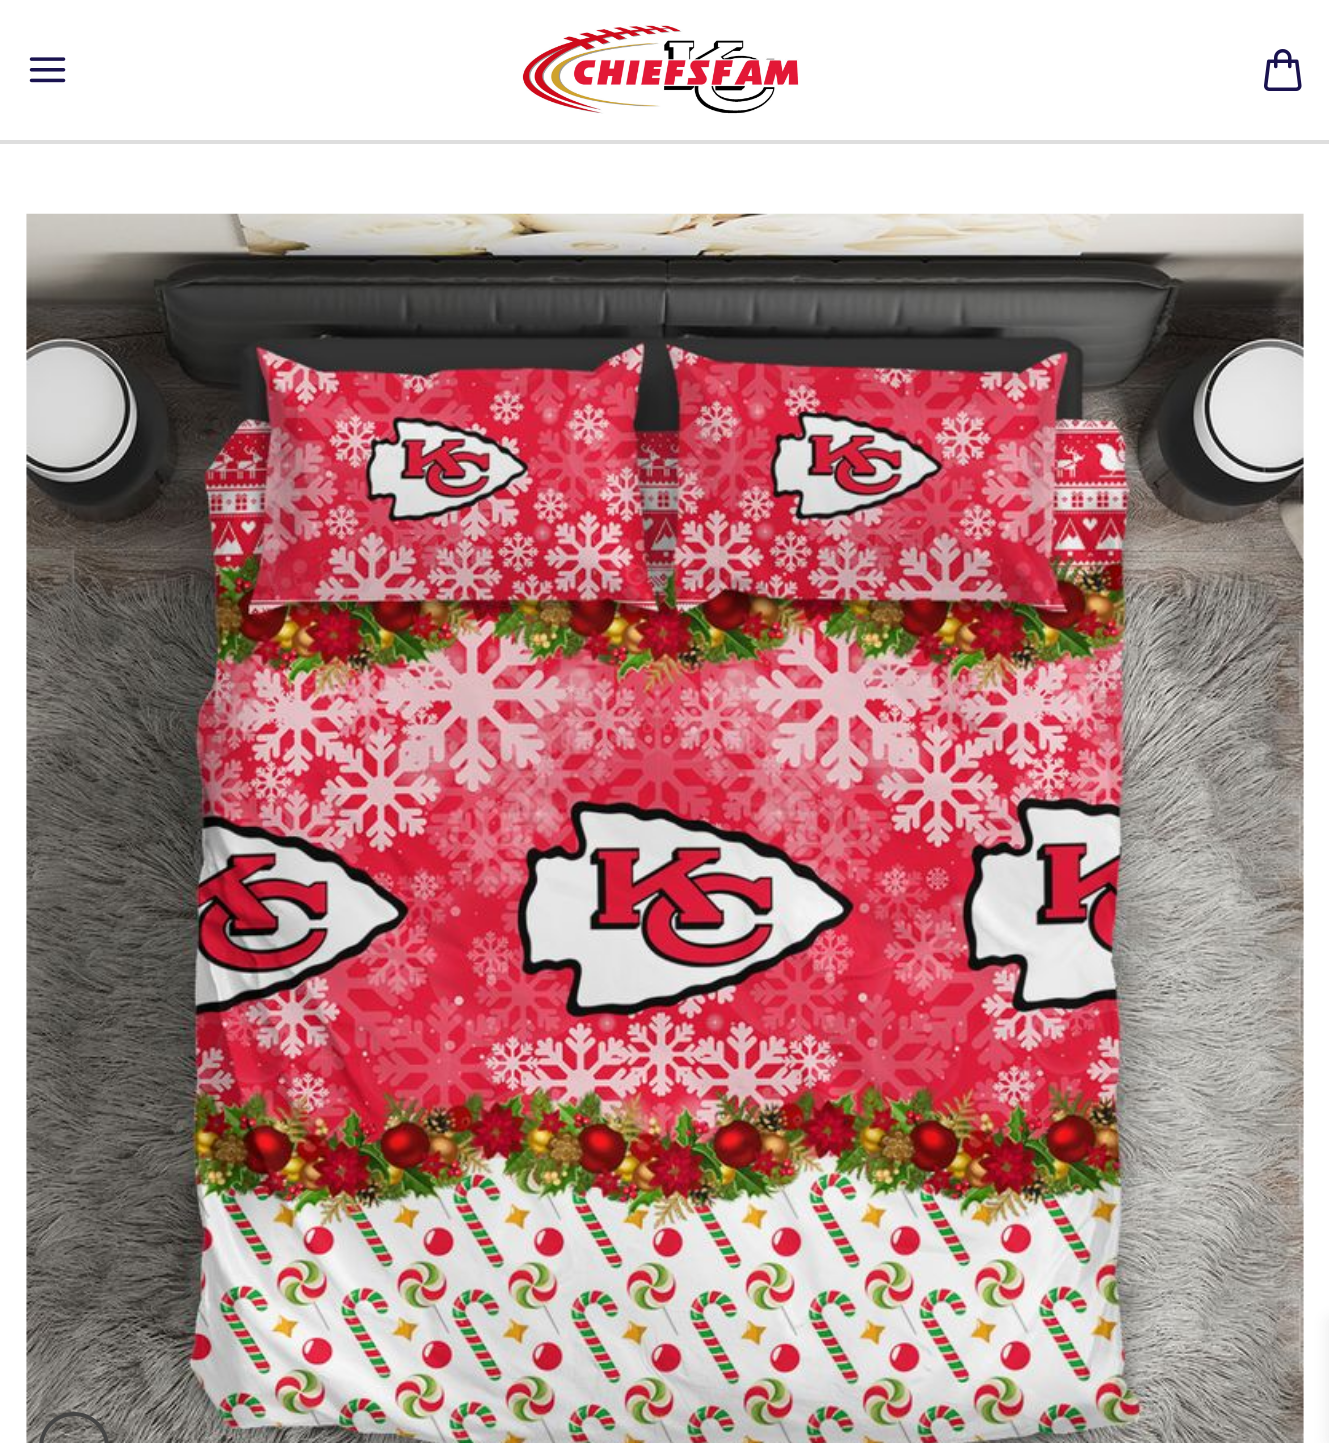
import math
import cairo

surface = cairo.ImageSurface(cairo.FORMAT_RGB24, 1329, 1443)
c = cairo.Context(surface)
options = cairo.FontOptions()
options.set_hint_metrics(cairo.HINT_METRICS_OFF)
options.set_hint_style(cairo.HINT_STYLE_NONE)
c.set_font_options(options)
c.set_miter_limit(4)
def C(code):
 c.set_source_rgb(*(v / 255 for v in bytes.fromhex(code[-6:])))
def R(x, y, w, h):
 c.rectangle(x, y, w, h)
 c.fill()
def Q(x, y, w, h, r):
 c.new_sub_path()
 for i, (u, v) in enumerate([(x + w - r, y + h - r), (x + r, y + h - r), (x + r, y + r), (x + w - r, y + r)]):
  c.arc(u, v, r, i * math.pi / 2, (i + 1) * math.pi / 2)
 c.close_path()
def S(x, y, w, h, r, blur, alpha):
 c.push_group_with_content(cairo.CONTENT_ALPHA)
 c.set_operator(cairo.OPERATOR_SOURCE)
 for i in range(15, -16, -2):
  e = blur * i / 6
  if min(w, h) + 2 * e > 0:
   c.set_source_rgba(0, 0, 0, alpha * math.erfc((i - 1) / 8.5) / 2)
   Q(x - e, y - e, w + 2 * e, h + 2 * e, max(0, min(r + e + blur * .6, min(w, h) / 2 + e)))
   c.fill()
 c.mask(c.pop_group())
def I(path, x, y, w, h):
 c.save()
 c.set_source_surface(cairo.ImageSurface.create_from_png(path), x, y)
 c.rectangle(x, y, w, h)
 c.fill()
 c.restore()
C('ffffff')
c.paint()
C('dedede')
R(0,140,1329,4)
I('1.png',29,57,37,26)
I('2.png',522,24,277,90)
I('3.png',1264,49,38,42)
I('4.png',26,213,1278,1230)
c.arc(74,1447,33,0,2 * math.pi)
C('444444')
c.set_line_width(4)
c.stroke()
C('000000')
S(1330,1321,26,121,0,9,.1)
surface.write_to_png('o.png')
